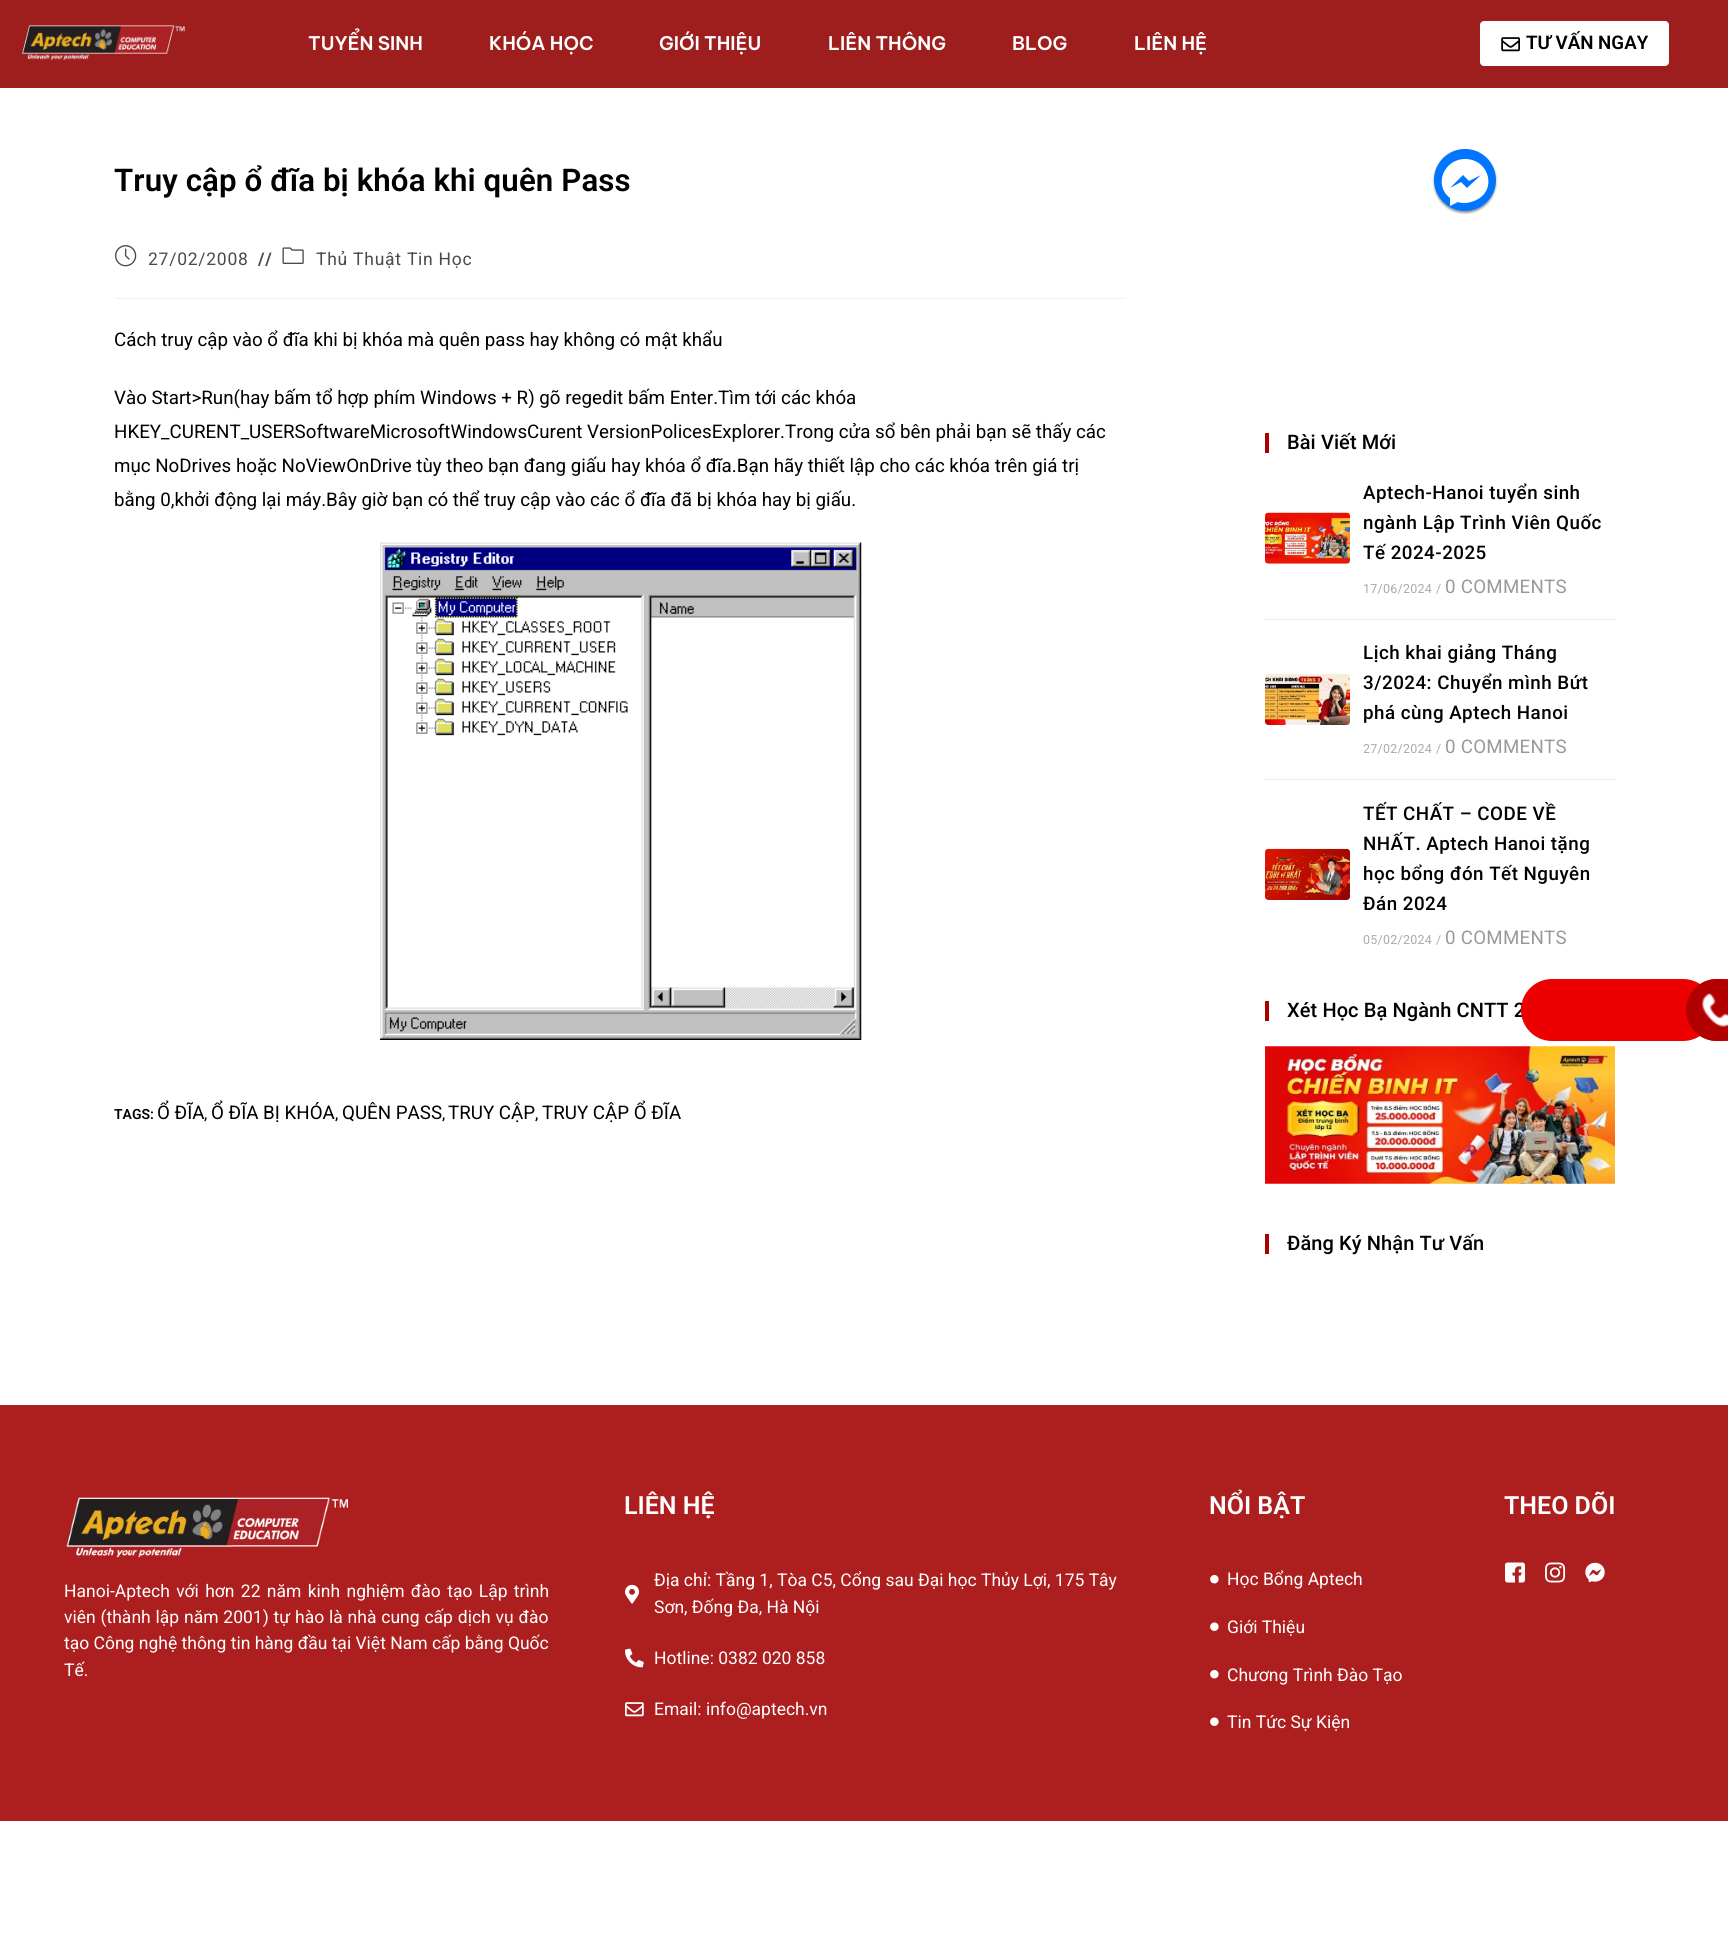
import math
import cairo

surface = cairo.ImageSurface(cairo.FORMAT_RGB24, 1728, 1957)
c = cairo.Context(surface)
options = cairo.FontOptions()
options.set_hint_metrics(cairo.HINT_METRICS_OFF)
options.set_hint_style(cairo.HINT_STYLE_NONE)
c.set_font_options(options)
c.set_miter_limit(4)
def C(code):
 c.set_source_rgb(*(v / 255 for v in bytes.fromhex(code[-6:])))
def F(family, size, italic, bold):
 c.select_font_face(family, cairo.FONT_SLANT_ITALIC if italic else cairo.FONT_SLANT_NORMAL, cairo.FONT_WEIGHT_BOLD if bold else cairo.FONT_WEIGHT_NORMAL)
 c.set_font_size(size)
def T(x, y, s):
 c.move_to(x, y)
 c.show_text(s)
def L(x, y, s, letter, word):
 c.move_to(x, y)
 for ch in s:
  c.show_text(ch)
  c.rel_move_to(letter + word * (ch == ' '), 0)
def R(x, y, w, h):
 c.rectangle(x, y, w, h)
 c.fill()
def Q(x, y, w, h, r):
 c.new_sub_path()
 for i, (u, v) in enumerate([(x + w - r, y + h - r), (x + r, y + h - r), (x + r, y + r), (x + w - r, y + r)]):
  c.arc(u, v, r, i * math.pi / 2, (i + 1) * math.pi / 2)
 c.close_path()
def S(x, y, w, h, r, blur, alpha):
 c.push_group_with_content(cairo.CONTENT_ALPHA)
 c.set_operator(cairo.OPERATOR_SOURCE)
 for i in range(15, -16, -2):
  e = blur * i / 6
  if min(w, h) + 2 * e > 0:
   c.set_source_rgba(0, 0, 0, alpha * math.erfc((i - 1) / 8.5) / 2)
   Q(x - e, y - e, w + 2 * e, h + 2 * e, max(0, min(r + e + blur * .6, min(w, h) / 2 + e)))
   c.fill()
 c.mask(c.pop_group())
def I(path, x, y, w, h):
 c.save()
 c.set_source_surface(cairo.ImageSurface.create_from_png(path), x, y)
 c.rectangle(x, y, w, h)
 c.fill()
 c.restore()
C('ffffff')
c.paint()
C('9e1d1d')
R(0,0,1728,88)
I('1.png',22,25,163,36)
F('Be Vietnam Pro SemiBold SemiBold',18.75,0,0)
C('ffffff')
T(308,50,'TUYỂN SINH')
T(489,50,'KHÓA HỌC')
T(659,50,'GIỚI THIỆU')
T(828,50,'LIÊN THÔNG')
T(1012,50,'BLOG')
T(1134,50,'LIÊN HỆ')
Q(1480,21,189,45,4)
c.fill()
I('2.png',1501,37,19,15)
F('Roboto SemiBold',18.75,0,0)
C('000000')
T(1526,49,'TƯ VẤN NGAY')
F('Roboto SemiBold',31.25,0,0)
L(114,191,'Truy cập ổ đĩa bị khóa khi quên Pass',.1,0)
C('f1f1f1')
R(115,298,1011,1)
I('3.png',115,245,22,22)
F('Roboto',17.5,0,0)
C('4a4a4a')
L(148,265,'27/02/2008',.75,0)
F('Roboto',17.5,0,1)
L(258,265,'//',.75,0)
I('4.png',282,247,22,17)
F('Roboto',17.5,0,0)
L(316,265,'Thủ Thuật Tin Học',.75,0)
F('Roboto',18.75,0,0)
C('000000')
T(114,346,'Cách truy cập vào ổ đĩa khi bị khóa mà quên pass hay không có mật khẩu')
T(114,404,'Vào Start>Run(hay bấm tổ hợp phím Windows + R) gõ regedit bấm Enter.Tìm tới các khóa')
T(114,438,'HKEY_CURENT_USERSoftwareMicrosoftWindowsCurent VersionPolicesExplorer.Trong cửa sổ bên phải bạn sẽ thấy các')
T(114,472,'mục NoDrives hoặc NoViewOnDrive tùy theo bạn đang giấu hay khóa ổ đĩa.Bạn hãy thiết lập cho các khóa trên giá trị')
T(114,506,'bằng 0,khởi động lại máy.Bây giờ bạn có thể truy cập vào các ổ đĩa đã bị khóa hay bị giấu.')
I('5.png',380,542,482,498)
F('Roboto SemiBold',14,0,0)
T(114,1119,'TAGS:')
F('Roboto',18.75,0,0)
T(157,1119,'Ổ ĐĨA')
F('Roboto SemiBold',14,0,0)
T(204,1119,',')
F('Roboto',18.75,0,0)
T(211,1119,'Ổ ĐĨA BỊ KHÓA')
F('Roboto SemiBold',14,0,0)
T(335,1119,',')
F('Roboto',18.75,0,0)
T(342,1119,'QUÊN PASS')
F('Roboto SemiBold',14,0,0)
T(442,1119,',')
F('Roboto',18.75,0,0)
T(448,1119,'TRUY CẬP')
F('Roboto SemiBold',14,0,0)
T(535,1119,',')
F('Roboto',18.75,0,0)
T(542,1119,'TRUY CẬP Ổ ĐĨA')
C('aa0000')
R(1265,433,4,20)
F('Roboto Medium',20,0,0)
C('000000')
L(1287,449,'Bài Viết Mới',.1,0)
I('6.png',1265,512,85,52)
F('Roboto Medium',18.75,0,0)
L(1363,499,'Aptech-Hanoi tuyển sinh',.5,0)
L(1363,529,'ngành Lập Trình Viên Quốc',.5,0)
L(1363,559,'Tế 2024-2025',.5,0)
F('Roboto',12.5,0,0)
C('aaaaaa')
L(1363,593,'17/06/2024',.25,0)
L(1436,593,'/',.25,0)
F('Roboto',18.75,0,0)
C('999999')
L(1445,593,'0 COMMENTS',.25,0)
C('e9e9e9')
R(1265,619,350,1)
I('7.png',1265,674,85,51)
F('Roboto Medium',18.75,0,0)
C('000000')
L(1363,659,'Lịch khai giảng Tháng',.5,0)
L(1363,689,'3/2024: Chuyển mình Bứt',.5,0)
L(1363,719,'phá cùng Aptech Hanoi',.5,0)
F('Roboto',12.5,0,0)
C('aaaaaa')
L(1363,753,'27/02/2024',.25,0)
L(1436,753,'/',.25,0)
F('Roboto',18.75,0,0)
C('999999')
L(1445,753,'0 COMMENTS',.25,0)
C('e9e9e9')
R(1265,779,350,1)
I('8.png',1265,848,85,52)
F('Roboto Medium',18.75,0,0)
C('000000')
L(1363,820,'TẾT CHẤT – CODE VỀ',.5,0)
L(1363,850,'NHẤT. Aptech Hanoi tặng',.5,0)
L(1363,880,'học bổng đón Tết Nguyên',.5,0)
L(1363,910,'Đán 2024',.5,0)
F('Roboto',12.5,0,0)
C('aaaaaa')
L(1363,944,'05/02/2024',.25,0)
L(1436,944,'/',.25,0)
F('Roboto',18.75,0,0)
C('999999')
L(1445,944,'0 COMMENTS',.25,0)
C('aa0000')
R(1265,1001,4,20)
F('Roboto Medium',20,0,0)
C('000000')
L(1287,1017,'Xét Học Bạ Ngành CNTT 2',.1,0)
I('9.png',1265,1046,350,138)
C('aa0000')
R(1265,1234,4,20)
C('000000')
L(1287,1250,'Đăng Ký Nhận Tư Vấn',.1,0)
C('ad1f1f')
R(0,1405,1728,416)
F('Roboto SemiBold',25,0,0)
C('ffffff')
T(624,1514,'LIÊN HỆ')
I('10.png',625,1584,15,20)
F('Roboto',17.5,0,0)
T(654,1586,'Địa chỉ: Tầng 1, Tòa C5, Cổng sau Đại học Thủy Lợi, 175 Tây')
T(654,1613,'Sơn, Đống Đa, Hà Nội')
I('11.png',625,1648,19,20)
T(654,1664,'Hotline: 0382 020 858')
I('12.png',625,1702,19,15)
T(654,1715,'Email: info@aptech.vn')
F('Roboto SemiBold',25,0,0)
T(1209,1514,'NỔI BẬT')
I('13.png',1210,1575,9,9)
F('Roboto',17.5,0,0)
T(1227,1585,'Học Bổng Aptech')
I('14.png',1210,1622,9,9)
T(1227,1633,'Giới Thiệu')
I('13.png',1210,1670,9,9)
T(1227,1681,'Chương Trình Đào Tạo')
I('14.png',1210,1717,9,9)
T(1227,1728,'Tin Tức Sự Kiện')
F('Roboto SemiBold',25,0,0)
T(1504,1514,'THEO DÕI')
I('15.png',1505,1562,20,21)
I('16.png',1545,1562,21,21)
I('17.png',1585,1562,20,21)
I('18.png',66,1497,282,61)
F('Roboto',17.5,0,0)
L(64,1597,'Hanoi-Aptech với hơn 22 năm kinh nghiệm đào tạo Lập trình',0,2)
L(64,1623,'viên (thành lập năm 2001) tự hào là nhà cung cấp dịch vụ đào',0,.5)
T(64,1649,'tạo Công nghệ thông tin hàng đầu tại Việt Nam cấp bằng Quốc')
T(64,1676,'Tế.')
C('000000')
S(1434,150,62,63,31,1,.4)
C('0075ff')
c.arc(1465,180,31,0,2 * math.pi)
c.fill()
C('ffffff')
c.new_path()
c.move_to(1465,159)
c.curve_to(1444,159,1433,185,1450,198)
c.line_to(1450,206)
c.line_to(1458,202)
c.curve_to(1463,204,1469,203,1474,201)
c.curve_to(1498,192,1490,159,1465,159)
c.close_path()
c.move_to(1467,188)
c.line_to(1461,182)
c.line_to(1450,188)
c.line_to(1463,175)
c.line_to(1469,181)
c.line_to(1481,175)
c.close_path()
c.fill()
C('ed0000')
Q(1521,979,193,62,31)
c.fill()
Q(1686,979,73,62,31)
c.fill()
C('b20000')
Q(1686,979,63,62,31)
c.fill()
I('19.png',1702,993,26,34)
surface.write_to_png('o.png')
